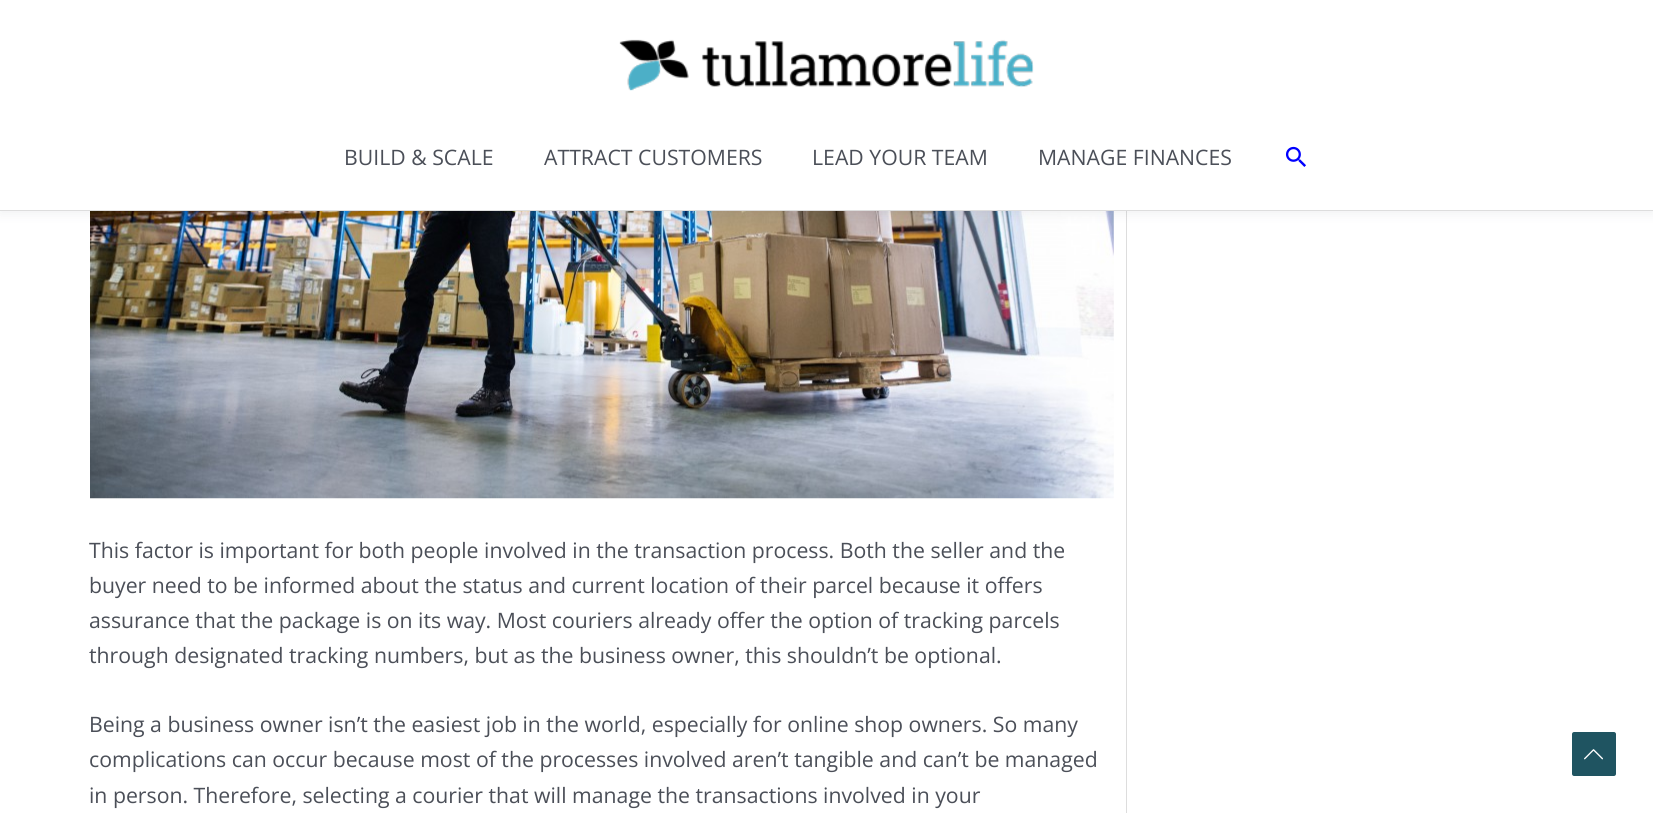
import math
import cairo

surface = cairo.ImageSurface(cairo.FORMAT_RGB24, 1653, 813)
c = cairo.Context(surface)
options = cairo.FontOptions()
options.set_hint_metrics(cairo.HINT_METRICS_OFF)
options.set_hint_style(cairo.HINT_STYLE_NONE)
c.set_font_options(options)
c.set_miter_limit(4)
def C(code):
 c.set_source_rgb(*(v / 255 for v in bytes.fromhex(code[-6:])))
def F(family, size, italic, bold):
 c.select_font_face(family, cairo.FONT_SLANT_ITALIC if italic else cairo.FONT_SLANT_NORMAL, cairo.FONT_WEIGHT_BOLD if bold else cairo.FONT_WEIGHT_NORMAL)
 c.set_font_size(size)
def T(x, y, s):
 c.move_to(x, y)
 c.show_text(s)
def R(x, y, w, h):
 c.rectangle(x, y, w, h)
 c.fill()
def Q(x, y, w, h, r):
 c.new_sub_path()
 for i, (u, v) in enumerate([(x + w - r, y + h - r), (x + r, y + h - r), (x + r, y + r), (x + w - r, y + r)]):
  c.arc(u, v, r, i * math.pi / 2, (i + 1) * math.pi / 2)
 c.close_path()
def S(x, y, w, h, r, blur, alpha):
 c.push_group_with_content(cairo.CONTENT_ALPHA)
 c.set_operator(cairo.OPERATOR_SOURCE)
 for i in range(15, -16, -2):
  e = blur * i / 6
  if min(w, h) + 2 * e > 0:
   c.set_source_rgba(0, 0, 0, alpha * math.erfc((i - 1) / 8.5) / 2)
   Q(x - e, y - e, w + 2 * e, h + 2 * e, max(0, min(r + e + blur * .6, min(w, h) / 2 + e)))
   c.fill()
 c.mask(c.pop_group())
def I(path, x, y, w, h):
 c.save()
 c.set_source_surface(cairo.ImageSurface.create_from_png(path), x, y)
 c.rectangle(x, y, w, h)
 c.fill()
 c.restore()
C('ffffff')
c.paint()
C('dddddd')
R(1126,211,1,602)
I('3.png',90,211,1024,288)
C('243242')
S(0,3,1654,211,0,6,.07)
C('ffffff')
R(0,0,1653,210)
C('dddddd')
R(0,210,1653,1)
I('1.png',619,39,415,52)
F('Open Sans',21.25,0,0)
C('4b4f58')
T(344,165,'BUILD & SCALE')
T(544,165,'ATTRACT CUSTOMERS')
T(812,165,'LEAD YOUR TEAM')
T(1038,165,'MANAGE FINANCES')
I('2.png',1285,146,21,21)
T(89,558,'This factor is important for both people involved in the transaction process. Both the seller and the')
T(89,593,'buyer need to be informed about the status and current location of their parcel because it offers')
T(89,628,'assurance that the package is on its way. Most couriers already offer the option of tracking parcels')
T(89,663,'through designated tracking numbers, but as the business owner, this shouldn’t be optional.')
T(89,732,'Being a business owner isn’t the easiest job in the world, especially for online shop owners. So many')
T(89,767,'complications can occur because most of the processes involved aren’t tangible and can’t be managed')
T(89,803,'in person. Therefore, selecting a courier that will manage the transactions involved in your')
C('1f5461')
c.new_path()
c.move_to(1614,776)
c.line_to(1574,776)
c.curve_to(1573,776,1572,775,1572,774)
c.line_to(1572,734)
c.curve_to(1572,733,1573,732,1574,732)
c.line_to(1614,732)
c.curve_to(1615,732,1616,733,1616,734)
c.line_to(1616,774)
c.curve_to(1616,775,1615,776,1614,776)
c.close_path()
c.fill()
I('4.png',1584,749,19,11)
surface.write_to_png('o.png')
